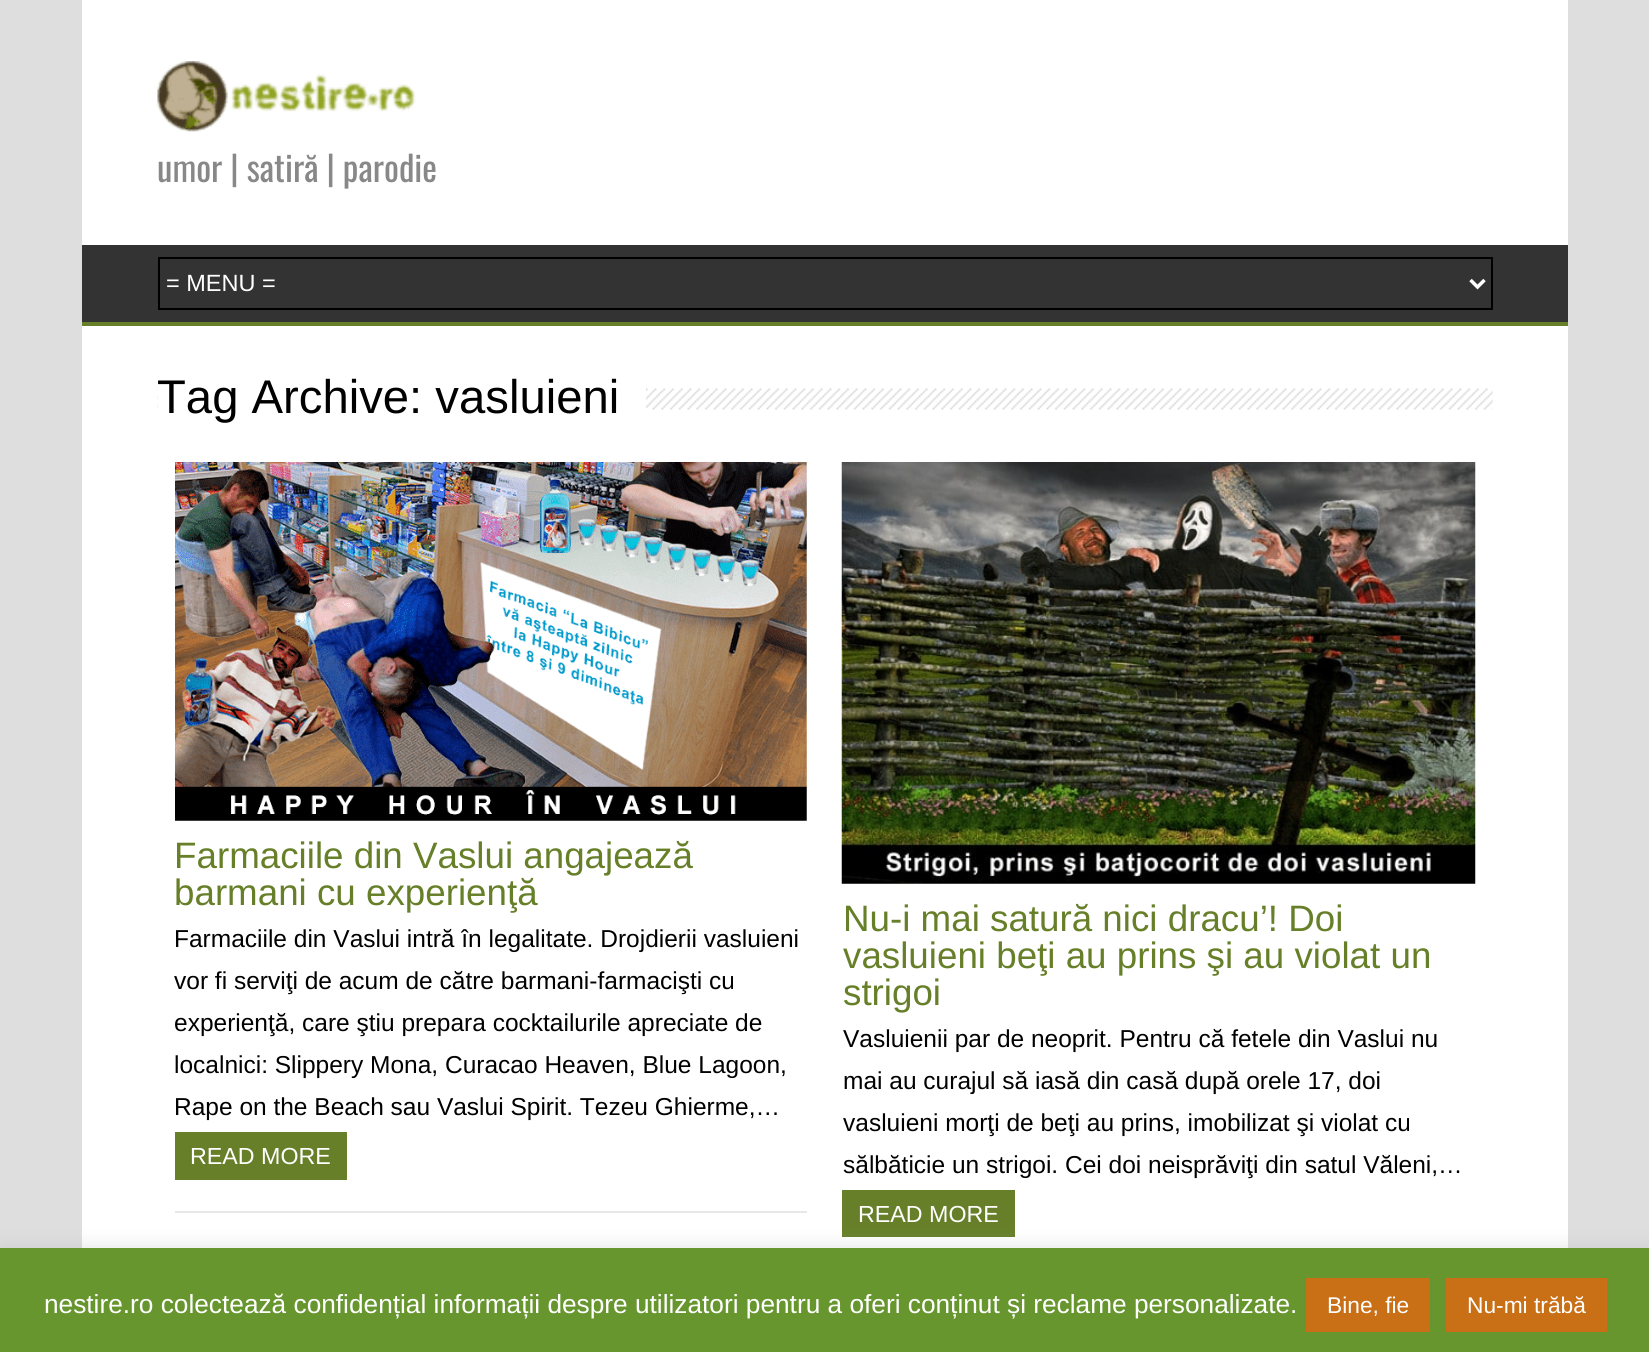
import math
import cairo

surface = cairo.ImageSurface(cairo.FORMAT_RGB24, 1649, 1352)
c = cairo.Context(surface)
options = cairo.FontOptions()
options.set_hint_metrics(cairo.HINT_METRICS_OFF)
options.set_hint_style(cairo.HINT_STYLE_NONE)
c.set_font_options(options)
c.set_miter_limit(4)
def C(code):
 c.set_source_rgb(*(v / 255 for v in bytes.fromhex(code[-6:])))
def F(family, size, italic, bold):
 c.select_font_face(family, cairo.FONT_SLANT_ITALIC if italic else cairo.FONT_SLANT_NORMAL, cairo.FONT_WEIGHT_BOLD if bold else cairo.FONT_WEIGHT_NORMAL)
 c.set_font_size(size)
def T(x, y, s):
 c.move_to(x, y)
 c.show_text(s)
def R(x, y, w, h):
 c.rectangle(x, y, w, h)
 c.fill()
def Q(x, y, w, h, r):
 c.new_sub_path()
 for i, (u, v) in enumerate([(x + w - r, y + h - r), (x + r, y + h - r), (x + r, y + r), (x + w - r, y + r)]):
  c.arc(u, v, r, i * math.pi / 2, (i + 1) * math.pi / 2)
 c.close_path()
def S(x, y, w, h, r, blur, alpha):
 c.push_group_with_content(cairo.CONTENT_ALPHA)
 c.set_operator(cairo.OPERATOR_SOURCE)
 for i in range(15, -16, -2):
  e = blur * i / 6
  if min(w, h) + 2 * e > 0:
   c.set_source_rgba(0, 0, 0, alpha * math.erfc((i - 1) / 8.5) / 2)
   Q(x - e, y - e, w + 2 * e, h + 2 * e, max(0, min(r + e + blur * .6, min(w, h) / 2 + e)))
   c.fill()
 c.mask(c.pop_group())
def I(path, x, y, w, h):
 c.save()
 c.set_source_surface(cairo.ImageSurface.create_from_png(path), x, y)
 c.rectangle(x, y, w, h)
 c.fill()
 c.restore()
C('dedede')
c.paint()
C('ffffff')
R(82,0,1486,1248)
I('1.png',157,61,259,71)
F('Oswald',35,0,0)
C('888888')
T(157,182,'umor | satiră | parodie')
C('333333')
R(82,245,1486,77)
C('667f28')
R(82,322,1486,4)
c.rectangle(159,258,1333,51)
C('000000')
c.stroke()
c.new_path()
c.move_to(1470.5,280)
c.line_to(1477.5,287)
c.line_to(1484.5,280)
C('ffffff')
c.set_line_width(3.5)
c.stroke()
F('Liberation Sans',23.5,0,0)
T(166,291,'= MENU =')
I('2.png',157,388,1336,22)
R(158,388,488,22)
F('Liberation Sans',47.25,0,0)
C('000000')
T(157,413,'Tag Archive: vasluieni')
C('e8e8e8')
R(175,1211,632,2)
I('3.png',175,462,632,359)
F('Liberation Sans',36.75,0,0)
C('667f28')
T(174,868,'Farmaciile din Vaslui angajează')
T(174,905,'barmani cu experienţă')
F('Liberation Sans',24.5,0,0)
C('000000')
T(174,947,'Farmaciile din Vaslui intră în legalitate. Drojdierii vasluieni')
T(174,989,'vor fi serviţi de acum de către barmani-farmacişti cu')
T(174,1031,'experienţă, care ştiu prepara cocktailurile apreciate de')
T(174,1073,'localnici: Slippery Mona, Curacao Heaven, Blue Lagoon,')
T(174,1115,'Rape on the Beach sau Vaslui Spirit. Tezeu Ghierme,…')
C('667f28')
R(175,1132,172,48)
F('Liberation Sans',23.25,0,0)
C('ffffff')
T(190,1164,'READ MORE')
I('4.png',841,462,635,422)
F('Liberation Sans',36.75,0,0)
C('667f28')
T(843,931,'Nu-i mai satură nici dracu’! Doi')
T(843,968,'vasluieni beţi au prins şi au violat un')
T(843,1005,'strigoi')
F('Liberation Sans',24.5,0,0)
C('000000')
T(843,1047,'Vasluienii par de neoprit. Pentru că fetele din Vaslui nu')
T(843,1089,'mai au curajul să iasă din casă după orele 17, doi')
T(843,1131,'vasluieni morţi de beţi au prins, imobilizat şi violat cu')
T(843,1173,'sălbăticie un strigoi. Cei doi neisprăviţi din satul Văleni,…')
C('667f28')
R(842,1190,173,47)
F('Liberation Sans',23.25,0,0)
C('ffffff')
T(858,1222,'READ MORE')
C('acabab')
S(0,1246,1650,105,0,9,.3)
C('67962e')
R(0,1248,1649,104)
F('Liberation Sans',26.25,0,0)
C('ffffff')
T(44,1313,'nestire.ro colectează confidențial informații despre utilizatori pentru a oferi conținut și reclame personalizate.')
C('c96f16')
R(1306,1278,124,54)
F('Liberation Sans',22.75,0,0)
C('ffffff')
T(1327,1313,'Bine, fie')
C('c96f16')
R(1446,1278,161,54)
C('ffffff')
T(1467,1313,'Nu-mi trăbă')
surface.write_to_png('o.png')
